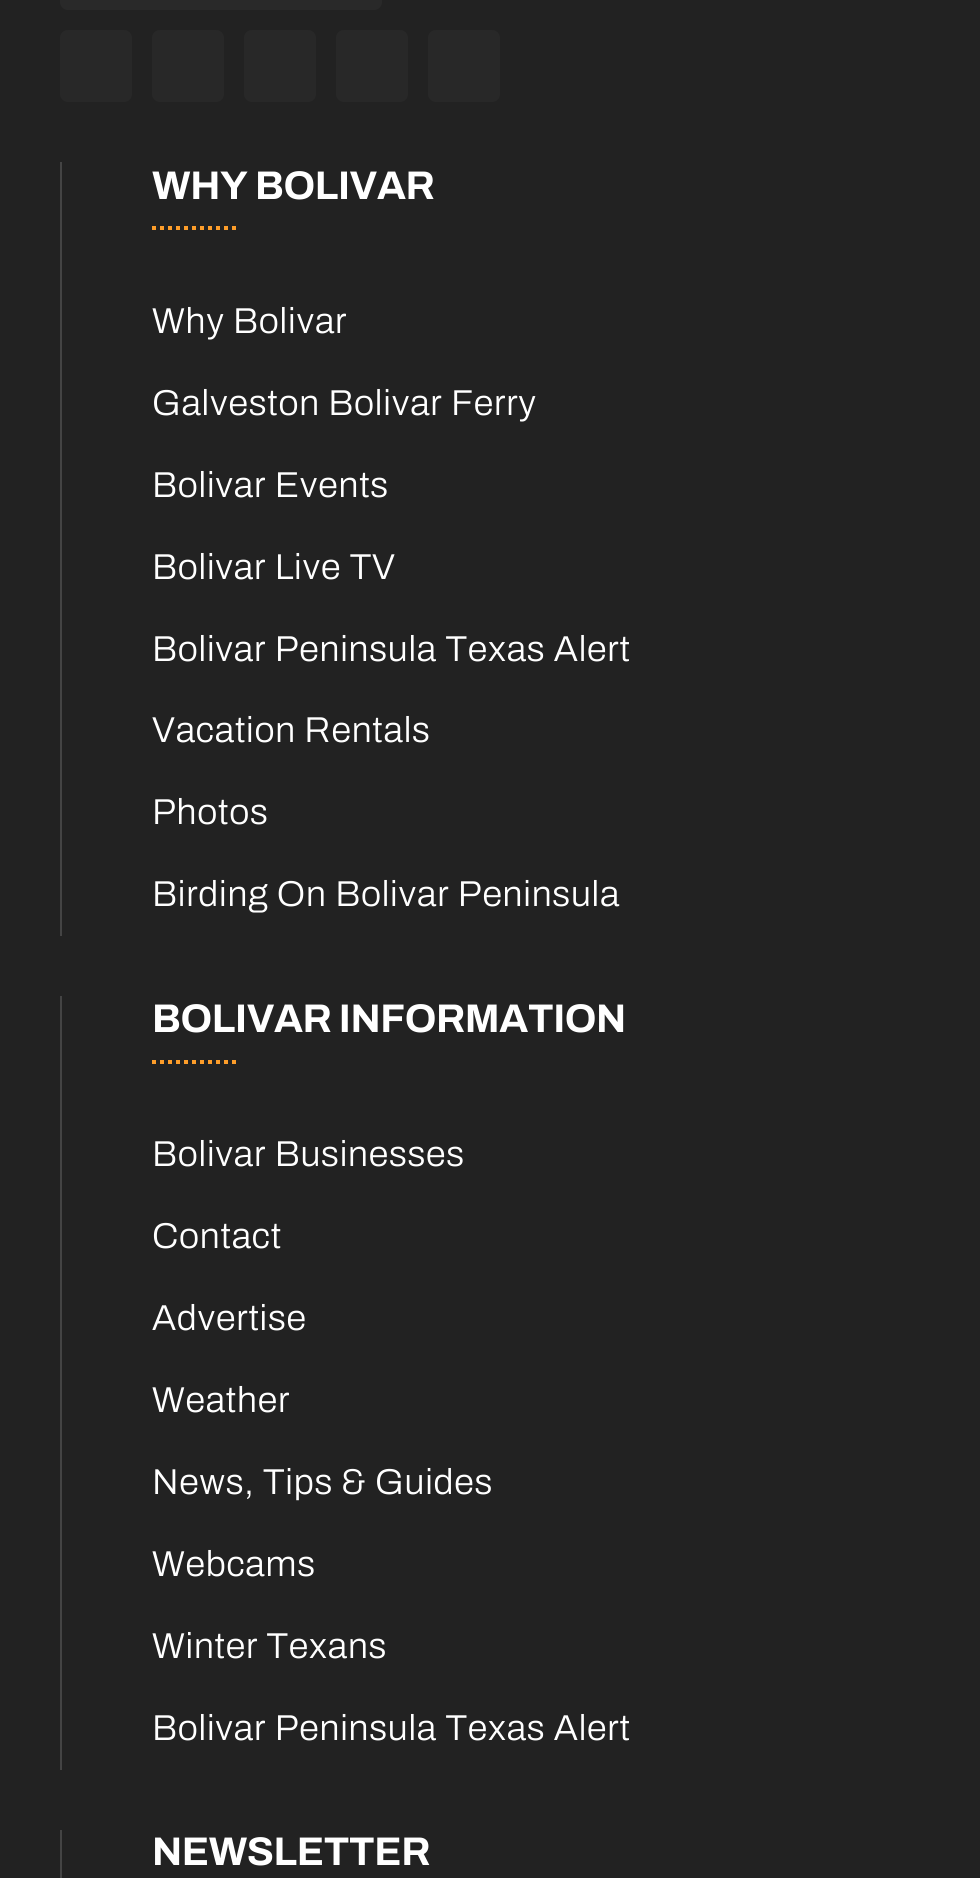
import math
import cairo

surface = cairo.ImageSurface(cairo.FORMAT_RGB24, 980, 1878)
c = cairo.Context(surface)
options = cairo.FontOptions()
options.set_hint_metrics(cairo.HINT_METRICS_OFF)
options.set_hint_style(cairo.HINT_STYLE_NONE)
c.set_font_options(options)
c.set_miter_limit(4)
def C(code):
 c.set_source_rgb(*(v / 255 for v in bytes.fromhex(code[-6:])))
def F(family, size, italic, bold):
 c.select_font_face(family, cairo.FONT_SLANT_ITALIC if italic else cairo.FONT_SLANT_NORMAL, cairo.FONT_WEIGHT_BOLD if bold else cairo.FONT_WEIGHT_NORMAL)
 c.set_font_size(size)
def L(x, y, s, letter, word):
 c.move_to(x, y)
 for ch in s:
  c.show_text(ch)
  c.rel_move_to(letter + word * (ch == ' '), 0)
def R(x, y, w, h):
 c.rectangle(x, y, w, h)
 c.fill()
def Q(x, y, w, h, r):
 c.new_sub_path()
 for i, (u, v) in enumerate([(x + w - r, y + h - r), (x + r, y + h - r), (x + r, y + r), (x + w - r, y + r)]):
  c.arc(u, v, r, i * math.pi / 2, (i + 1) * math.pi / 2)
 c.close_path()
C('222222')
c.paint()
C('292929')
Q(60,-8,322,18,8)
c.fill()
C('282828')
Q(60,30,72,72,8)
c.fill()
Q(152,30,72,72,8)
c.fill()
Q(244,30,72,72,8)
c.fill()
Q(336,30,72,72,8)
c.fill()
Q(428,30,72,72,8)
c.fill()
C('444444')
R(60,162,2,774)
F('Archivo',40,0,1)
C('ffffff')
L(152,199,'WHY BOLIVAR',-.4,0)
c.new_path()
c.move_to(152,228)
c.line_to(236,228)
C('fd9d2a')
c.set_line_width(4)
c.set_dash([4,4])
c.stroke()
F('Archivo Light',36,0,0)
C('ffffff')
L(152,333,'Why Bolivar',.75,0)
L(152,415,'Galveston Bolivar Ferry',.75,0)
L(152,497,'Bolivar Events',.75,0)
L(152,579,'Bolivar Live TV',.75,0)
L(152,661,'Bolivar Peninsula Texas Alert',.75,0)
L(152,742,'Vacation Rentals',.75,0)
L(152,824,'Photos',.75,0)
L(152,906,'Birding On Bolivar Peninsula',.75,0)
C('444444')
R(60,996,2,774)
F('Archivo',40,0,1)
C('ffffff')
L(152,1032,'BOLIVAR INFORMATION',-.4,0)
c.new_path()
c.move_to(152,1062)
c.line_to(236,1062)
C('fd9d2a')
c.stroke()
F('Archivo Light',36,0,0)
C('ffffff')
L(152,1166,'Bolivar Businesses',.75,0)
L(152,1248,'Contact',.75,0)
L(152,1330,'Advertise',.75,0)
L(152,1412,'Weather',.75,0)
L(152,1494,'News, Tips & Guides',.75,0)
L(152,1576,'Webcams',.75,0)
L(152,1658,'Winter Texans',.75,0)
L(152,1740,'Bolivar Peninsula Texas Alert',.75,0)
C('444444')
R(60,1830,2,48)
F('Archivo',40,0,1)
C('ffffff')
L(152,1865,'NEWSLETTER',-.4,0)
surface.write_to_png('o.png')
